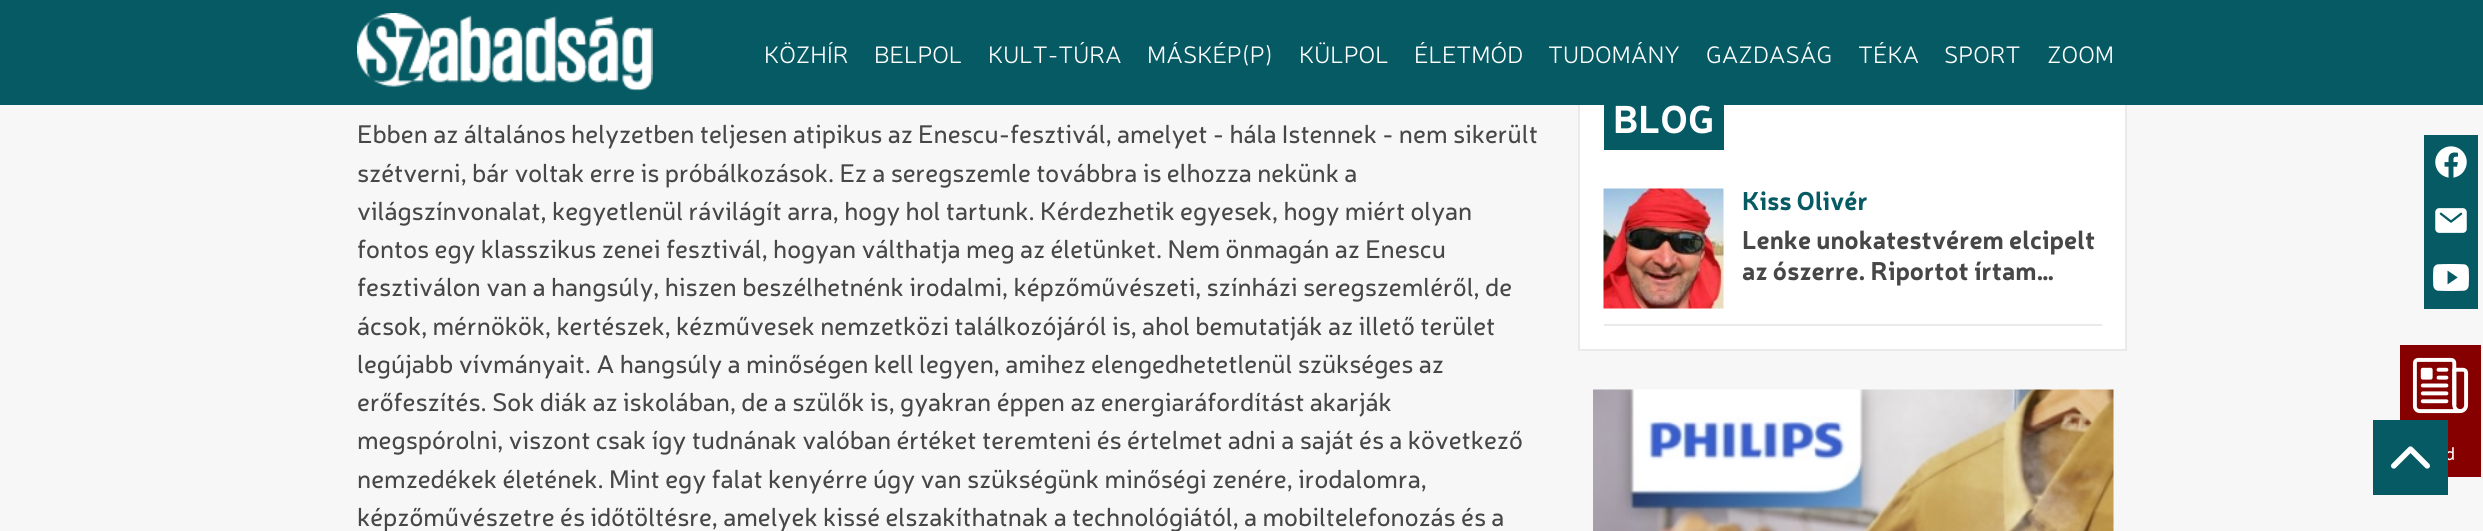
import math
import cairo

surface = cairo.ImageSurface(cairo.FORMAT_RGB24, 2483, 531)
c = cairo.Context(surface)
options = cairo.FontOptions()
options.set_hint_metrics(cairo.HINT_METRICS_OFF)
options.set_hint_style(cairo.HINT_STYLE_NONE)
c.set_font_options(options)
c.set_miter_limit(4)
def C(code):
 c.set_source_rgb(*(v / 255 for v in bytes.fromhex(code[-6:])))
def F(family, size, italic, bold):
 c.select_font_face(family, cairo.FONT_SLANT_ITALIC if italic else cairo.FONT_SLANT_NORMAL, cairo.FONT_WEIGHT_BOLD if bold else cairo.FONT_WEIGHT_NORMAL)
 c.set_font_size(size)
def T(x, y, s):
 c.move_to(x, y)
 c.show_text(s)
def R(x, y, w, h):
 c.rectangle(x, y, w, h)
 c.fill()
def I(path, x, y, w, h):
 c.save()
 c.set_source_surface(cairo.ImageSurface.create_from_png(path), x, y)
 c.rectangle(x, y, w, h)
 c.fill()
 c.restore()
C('f7f7f7')
c.paint()
C('ffffff')
R(1580,105,545,244)
c.rectangle(1579,49,547,301)
C('eaeaea')
c.stroke()
C('055a63')
R(0,0,2483,105)
I('1.png',357,13,296,78)
F('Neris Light',24,0,0)
C('ffffff')
T(764,63,'KÖZHÍR')
T(874,63,'BELPOL')
T(988,63,'KULT-TÚRA')
T(1147,63,'MÁSKÉP(P)')
T(1299,63,'KÜLPOL')
T(1414,63,'ÉLETMÓD')
T(1548,63,'TUDOMÁNY')
T(1706,63,'GAZDASÁG')
T(1858,63,'TÉKA')
T(1944,63,'SPORT')
T(2047,63,'ZOOM')
F('Neris',25.5,0,0)
C('474747')
T(357,143,'Ebben az általános helyzetben teljesen atipikus az Enescu-fesztivál, amelyet - hála Istennek - nem sikerült')
T(357,182,'szétverni, bár voltak erre is próbálkozások. Ez a seregszemle továbbra is elhozza nekünk a')
T(357,220,'világszínvonalat, kegyetlenül rávilágít arra, hogy hol tartunk. Kérdezhetik egyesek, hogy miért olyan')
T(357,258,'fontos egy klasszikus zenei fesztivál, hogyan válthatja meg az életünket. Nem önmagán az Enescu')
T(357,296,'fesztiválon van a hangsúly, hiszen beszélhetnénk irodalmi, képzőművészeti, színházi seregszemléről, de')
T(357,335,'ácsok, mérnökök, kertészek, kézművesek nemzetközi találkozójáról is, ahol bemutatják az illető terület')
T(357,373,'legújabb vívmányait. A hangsúly a minőségen kell legyen, amihez elengedhetetlenül szükséges az')
T(357,411,'erőfeszítés. Sok diák az iskolában, de a szülők is, gyakran éppen az energiaráfordítást akarják')
T(357,449,'megspórolni, viszont csak így tudnának valóban értéket teremteni és értelmet adni a saját és a következő')
T(357,488,'nemzedékek életének. Mint egy falat kenyérre úgy van szükségünk minőségi zenére, irodalomra,')
T(357,526,'képzőművészetre és időtöltésre, amelyek kissé elszakíthatnak a technológiától, a mobiltelefonozás és a')
C('055a63')
R(1604,105,120,45)
F('Neris',38.5,0,1)
C('ffffff')
T(1613,133,'BLOG')
C('eaeaea')
R(1604,324,498,2)
I('2.png',1603,188,121,121)
F('Neris',25.5,0,1)
C('055a63')
T(1742,210,'Kiss Olivér')
C('474747')
T(1742,249,'Lenke unokatestvérem elcipelt')
T(1742,280,'az ószerre. Riportot írtam…')
I('3.png',1593,389,521,142)
C('870000')
R(2400,345,81,132)
F('Neris',18,0,0)
C('ffffff')
T(2445,460,'d')
C('055a63')
R(2373,420,75,75)
I('4.png',2391,446,39,23)
R(2424,135,54,174)
I('5.png',2435,146,32,32)
I('6.png',2435,208,32,25)
I('7.png',2433,264,36,27)
I('8.png',2412,357,57,57)
surface.write_to_png('o.png')
